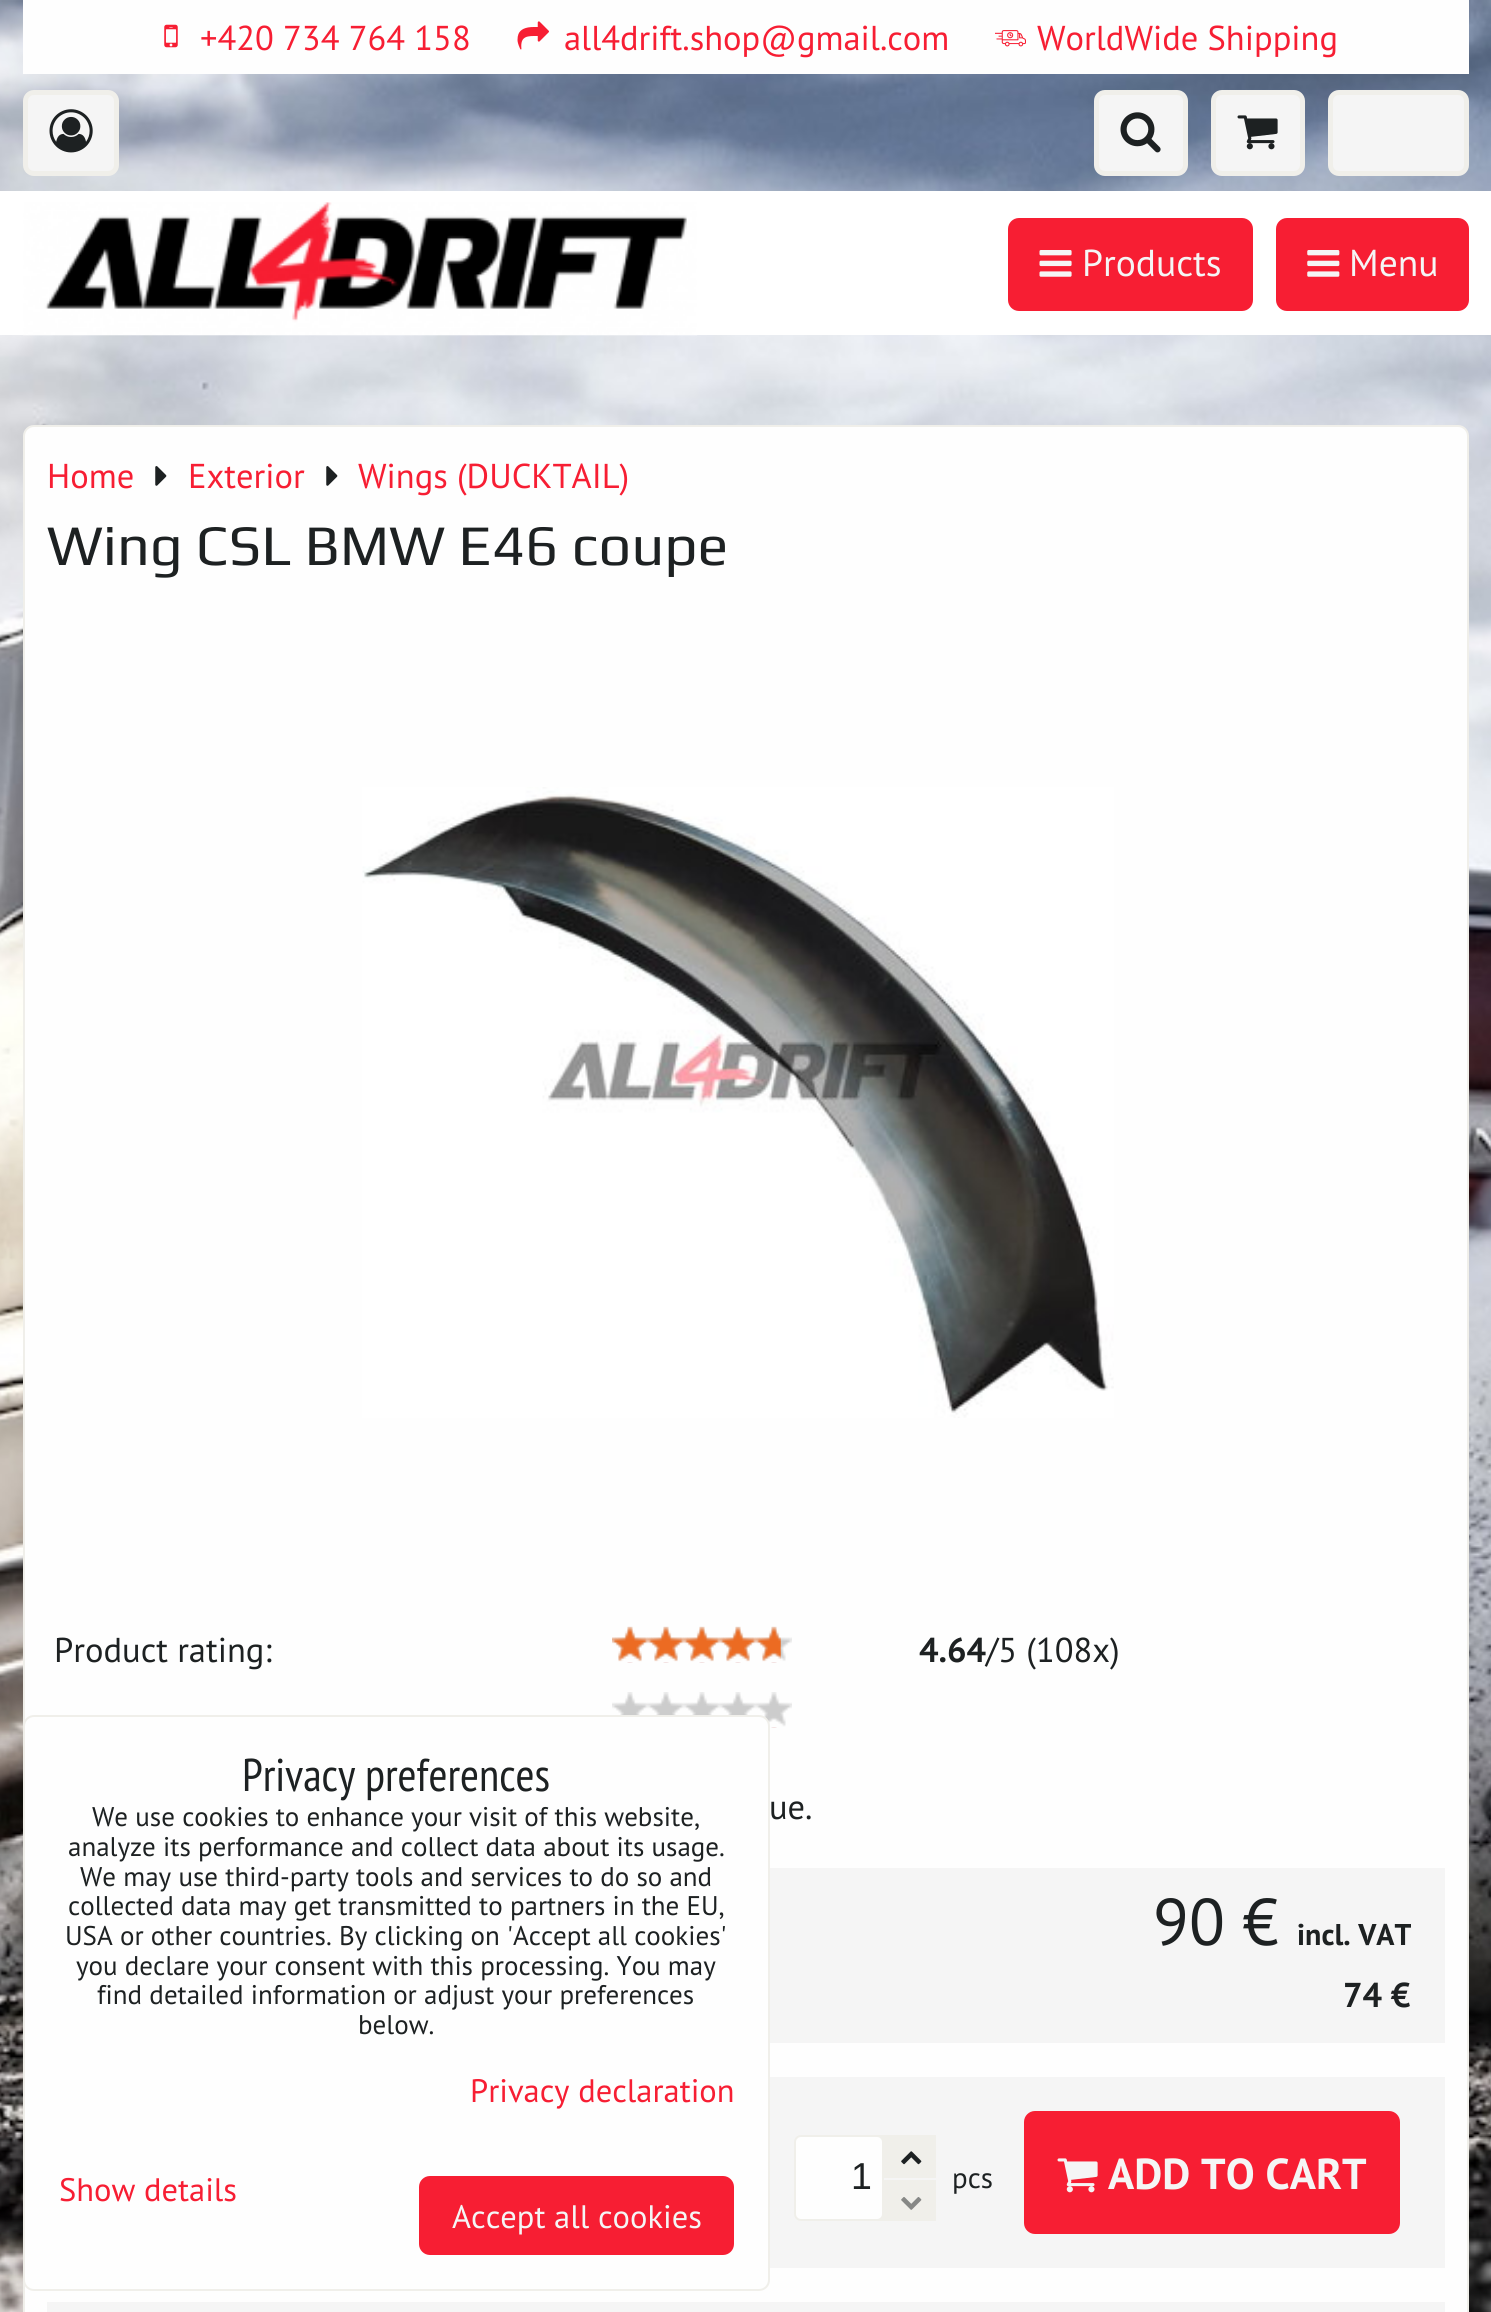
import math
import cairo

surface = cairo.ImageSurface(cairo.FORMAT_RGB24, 1491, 2312)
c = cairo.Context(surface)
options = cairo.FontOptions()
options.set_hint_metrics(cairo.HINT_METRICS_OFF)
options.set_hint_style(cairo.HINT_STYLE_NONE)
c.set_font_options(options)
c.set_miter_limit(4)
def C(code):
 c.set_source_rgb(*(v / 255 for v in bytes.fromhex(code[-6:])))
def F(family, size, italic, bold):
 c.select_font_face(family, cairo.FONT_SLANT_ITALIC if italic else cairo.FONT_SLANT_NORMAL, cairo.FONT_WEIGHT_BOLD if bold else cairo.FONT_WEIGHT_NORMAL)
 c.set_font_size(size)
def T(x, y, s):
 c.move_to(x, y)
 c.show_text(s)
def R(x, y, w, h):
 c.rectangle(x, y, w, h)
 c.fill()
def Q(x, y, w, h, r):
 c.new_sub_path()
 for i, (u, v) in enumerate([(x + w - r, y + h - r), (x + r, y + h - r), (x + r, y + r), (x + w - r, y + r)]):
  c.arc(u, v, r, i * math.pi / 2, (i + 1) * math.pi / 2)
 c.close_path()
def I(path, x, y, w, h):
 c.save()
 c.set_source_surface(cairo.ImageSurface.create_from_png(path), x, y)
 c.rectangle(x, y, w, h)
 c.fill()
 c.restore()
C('ffffff')
c.paint()
I('1.png',0,0,1491,2312)
C('fefefe')
R(23,0,1446,74)
I('2.png',164,24,14,24)
F('PT Sans',34.5,0,0)
C('f71e33')
T(200,50,'+420 734 764 158')
I('3.png',517,21,32,29)
T(564,50,'all4drift.shop@gmail.com')
I('4.png',995,30,31,17)
T(1037,50,'WorldWide Shipping')
C('f5f5f5')
Q(25.5,92.5,91,81,8.5)
c.fill_preserve()
C('f0efea')
c.set_line_width(5)
c.stroke()
I('5.png',49,109,44,44)
C('f5f5f5')
Q(1096.5,92.5,89,81,8.5)
c.fill_preserve()
C('f0efea')
c.stroke()
I('6.png',1120,112,41,41)
C('f5f5f5')
Q(1213.5,92.5,89,81,8.5)
c.fill_preserve()
C('f0efea')
c.stroke()
I('7.png',1237,115,41,35)
C('f5f5f5')
Q(1330.5,92.5,136,81,8.5)
c.fill_preserve()
C('f0efea')
c.stroke()
C('ffffff')
R(0,191,1491,144)
I('8.png',23,202,674,134)
C('f71e33')
Q(1009,219,243,91,10)
c.fill_preserve()
c.set_line_width(2)
c.stroke()
I('9.png',1039,250,33,27)
F('PT Sans',37.5,0,0)
C('f5f5f5')
T(1082,276,'Products')
C('f71e33')
Q(1277,219,191,91,10)
c.fill_preserve()
c.stroke()
I('10.png',1307,250,33,27)
C('f5f5f5')
T(1349,276,'Menu')
C('fefefe')
Q(24,426,1444,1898,10)
c.fill_preserve()
C('f0efea')
c.stroke()
F('PT Sans',34.5,0,0)
C('f71e33')
T(47,488,'Home')
I('11.png',155,466,12,20)
T(188,488,'Exterior')
I('11.png',326,466,12,20)
T(358,488,'Wings (DUCKTAIL)')
F('Play',57.6,0,0)
C('1d2122')
T(47,565,'Wing CSL BMW E46 coupe')
I('12.png',362,787,752,631)
F('PT Sans',34.5,0,0)
T(54,1662,'Product rating:')
I('13.png',612,1626,180,37)
I('14.png',612,1626,169,36)
F('PT Sans',34.5,0,1)
T(919,1662,'4.64')
F('PT Sans',34.5,0,0)
T(986,1662,'/5 (108x)')
I('15.png',612,1692,180,36)
T(769,1819,'ue.')
C('f5f5f5')
R(770,1868,675,175)
F('PT Sans',66,0,0)
C('1d2122')
T(1153,1945,'90 €')
F('PT Sans',30,0,1)
T(1297,1945,'incl. VAT')
F('PT Sans',34.5,0,1)
T(1343,2007,'74 €')
C('f5f5f5')
R(770,2077,675,191)
C('f0efea')
R(877,2135,59,86)
C('fefefe')
Q(795,2136,88,84,6)
c.fill_preserve()
C('f0efea')
c.stroke()
F('Liberation Sans',37.5,0,0)
C('1d2122')
T(851,2189,'1')
I('16.png',901,2151,21,14)
C('f5f5f5')
R(884,2178,52,2)
I('17.png',901,2197,21,13)
F('PT Sans',29,0,0)
C('1d2122')
T(952,2188,'pcs')
C('f71e33')
Q(1024,2111,376,123,11)
c.fill()
I('18.png',1057,2158,41,35)
F('PT Sans',43.25,0,1)
C('f5f5f5')
T(1108,2189,'ADD TO CART')
c.rectangle(52.5,2307.5,1387,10)
c.set_line_width(11)
c.stroke()
C('fefefe')
Q(24,1716,745,574,10)
c.fill_preserve()
C('f0efea')
c.set_line_width(2)
c.stroke()
F('PT Sans Narrow',46,0,0)
C('1d2122')
T(242,1791,'Privacy preferences')
F('PT Sans',27,0,0)
T(92,1826,'We use cookies to enhance your visit of this website,')
T(68,1856,'analyze its performance and collect data about its usage.')
T(80,1886,'We may use third-party tools and services to do so and')
T(68,1915,'collected data may get transmitted to partners in the EU,')
T(65,1945,'USA or other countries. By clicking on \'Accept all cookies\'')
T(76,1975,'you declare your consent with this processing. You may')
T(97,2004,'find detailed information or adjust your preferences')
T(358,2034,'below.')
F('PT Sans',32.5,0,0)
C('f71e33')
T(470,2102,'Privacy declaration')
T(59,2201,'Show details')
Q(420,2177,313,77,10)
c.fill_preserve()
c.stroke()
C('f5f5f5')
T(452,2228,'Accept all cookies')
surface.write_to_png('o.png')
